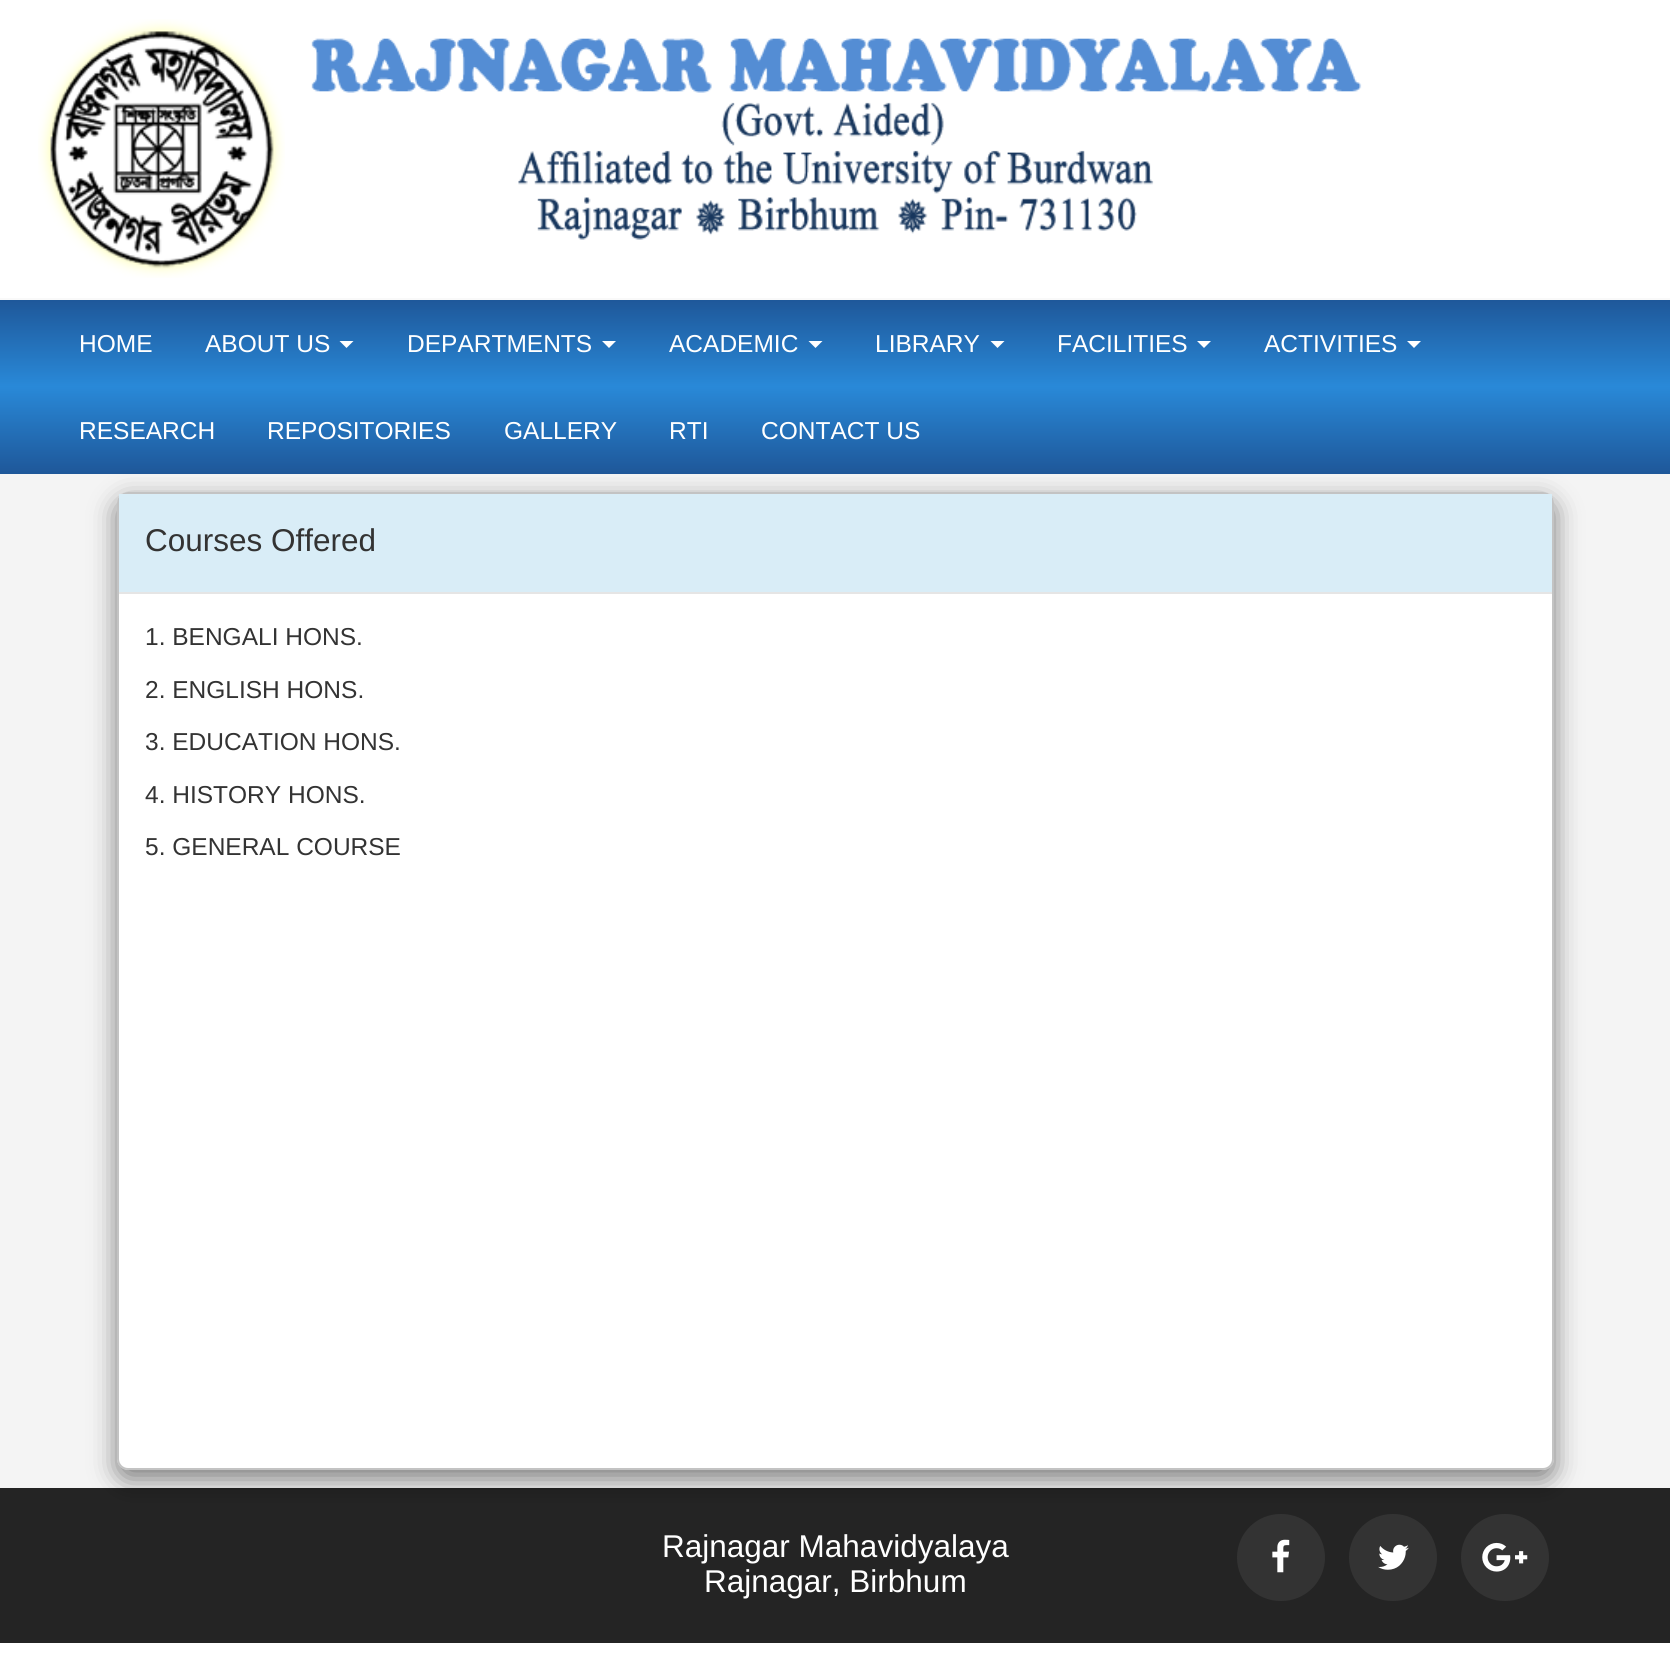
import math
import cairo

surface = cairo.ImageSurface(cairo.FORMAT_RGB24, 1670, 1670)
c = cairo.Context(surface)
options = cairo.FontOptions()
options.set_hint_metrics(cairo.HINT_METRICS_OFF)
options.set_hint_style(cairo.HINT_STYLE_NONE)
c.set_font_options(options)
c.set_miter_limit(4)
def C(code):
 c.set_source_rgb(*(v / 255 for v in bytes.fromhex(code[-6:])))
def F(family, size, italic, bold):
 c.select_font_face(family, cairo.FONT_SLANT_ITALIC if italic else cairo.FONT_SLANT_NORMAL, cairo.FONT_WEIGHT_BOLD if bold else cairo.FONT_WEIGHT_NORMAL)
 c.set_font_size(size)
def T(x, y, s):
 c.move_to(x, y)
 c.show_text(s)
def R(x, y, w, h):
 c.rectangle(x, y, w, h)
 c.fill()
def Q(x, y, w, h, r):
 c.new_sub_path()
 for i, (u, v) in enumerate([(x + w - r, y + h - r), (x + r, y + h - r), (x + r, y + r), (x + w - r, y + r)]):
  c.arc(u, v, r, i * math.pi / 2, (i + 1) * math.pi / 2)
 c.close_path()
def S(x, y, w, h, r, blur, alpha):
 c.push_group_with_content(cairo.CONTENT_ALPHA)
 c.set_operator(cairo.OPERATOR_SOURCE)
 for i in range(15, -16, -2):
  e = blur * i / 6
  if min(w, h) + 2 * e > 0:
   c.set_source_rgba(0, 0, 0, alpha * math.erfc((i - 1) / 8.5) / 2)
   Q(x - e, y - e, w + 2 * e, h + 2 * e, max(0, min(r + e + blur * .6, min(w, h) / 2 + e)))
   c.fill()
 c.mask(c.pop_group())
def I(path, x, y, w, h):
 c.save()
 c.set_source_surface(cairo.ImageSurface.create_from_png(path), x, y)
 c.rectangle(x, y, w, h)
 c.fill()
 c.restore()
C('ffffff')
c.paint()
I('1.png',38,19,247,259)
I('2.png',311,38,1051,202)
gradient = cairo.LinearGradient(836,299,836,474)
gradient.add_color_stop_rgba(0,0.118,0.341,0.6,1)
gradient.add_color_stop_rgba(.5,0.161,0.537,0.847,1)
gradient.add_color_stop_rgba(1,0.118,0.341,0.6,1)
c.set_source(gradient)
R(0,300,1670,174)
C('f9f9f9')
R(0,298,1670,2)
F('Liberation Sans',24.5,0,0)
C('ffffff')
T(79,352,'HOME')
T(205,352,'ABOUT US')
c.new_path()
c.move_to(339.5,341)
c.line_to(353.5,341)
c.line_to(346.5,348)
c.close_path()
c.fill()
T(407,352,'DEPARTMENTS')
c.new_path()
c.move_to(602,341)
c.line_to(616,341)
c.line_to(609,348)
c.close_path()
c.fill()
T(669,352,'ACADEMIC')
c.new_path()
c.move_to(808.5,341)
c.line_to(822.5,341)
c.line_to(815.5,348)
c.close_path()
c.fill()
T(875,352,'LIBRARY')
c.new_path()
c.move_to(990.5,341)
c.line_to(1004.5,341)
c.line_to(997.5,348)
c.close_path()
c.fill()
T(1057,352,'FACILITIES')
c.new_path()
c.move_to(1197,341)
c.line_to(1211,341)
c.line_to(1204,348)
c.close_path()
c.fill()
T(1264,352,'ACTIVITIES')
c.new_path()
c.move_to(1407,341)
c.line_to(1421,341)
c.line_to(1414,348)
c.close_path()
c.fill()
T(79,439,'RESEARCH')
T(267,439,'REPOSITORIES')
T(504,439,'GALLERY')
T(669,439,'RTI')
T(761,439,'CONTACT US')
C('f4f4f4')
R(0,474,1670,1014)
C('242424')
R(0,1488,1670,155)
c.save()
c.set_fill_rule(cairo.FILL_RULE_EVEN_ODD)
c.new_path()
c.move_to(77,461)
c.line_to(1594,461)
c.line_to(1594,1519)
c.line_to(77,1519)
c.close_path()
c.move_to(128,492)
c.line_to(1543,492)
c.curve_to(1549,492,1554,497,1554,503)
c.line_to(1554,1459)
c.curve_to(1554,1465,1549,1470,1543,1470)
c.line_to(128,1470)
c.curve_to(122,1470,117,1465,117,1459)
c.line_to(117,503)
c.curve_to(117,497,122,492,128,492)
c.close_path()
c.clip()
C('000000')
S(117,501,1437,978,11,13,.5)
c.restore()
C('ffffff')
Q(119,494,1433,974,9)
c.fill()
Q(118,493,1435,976,10)
c.set_source_rgba(0,0,0,0.2)
c.stroke()
C('d9edf7')
R(119,494,1433,98)
C('e5e5e5')
R(119,592,1433,2)
F('Liberation Sans',31.5,0,0)
C('333333')
T(145,551,'Courses Offered')
F('Liberation Sans',24.5,0,0)
T(145,645,'1. BENGALI HONS.')
T(145,698,'2. ENGLISH HONS.')
T(145,750,'3. EDUCATION HONS.')
T(145,803,'4. HISTORY HONS.')
T(145,855,'5. GENERAL COURSE')
F('Liberation Sans',31.5,0,0)
C('ffffff')
T(662,1557,'Rajnagar Mahavidyalaya')
T(704,1592,'Rajnagar, Birbhum')
C('333333')
Q(1237,1514,88,87,43.5)
c.fill()
I('3.png',1272,1539,18,34)
Q(1349,1514,88,87,43.5)
c.fill()
I('4.png',1378,1544,31,26)
Q(1461,1514,88,87,43.5)
c.fill()
I('5.png',1482,1542,46,30)
surface.write_to_png('o.png')
